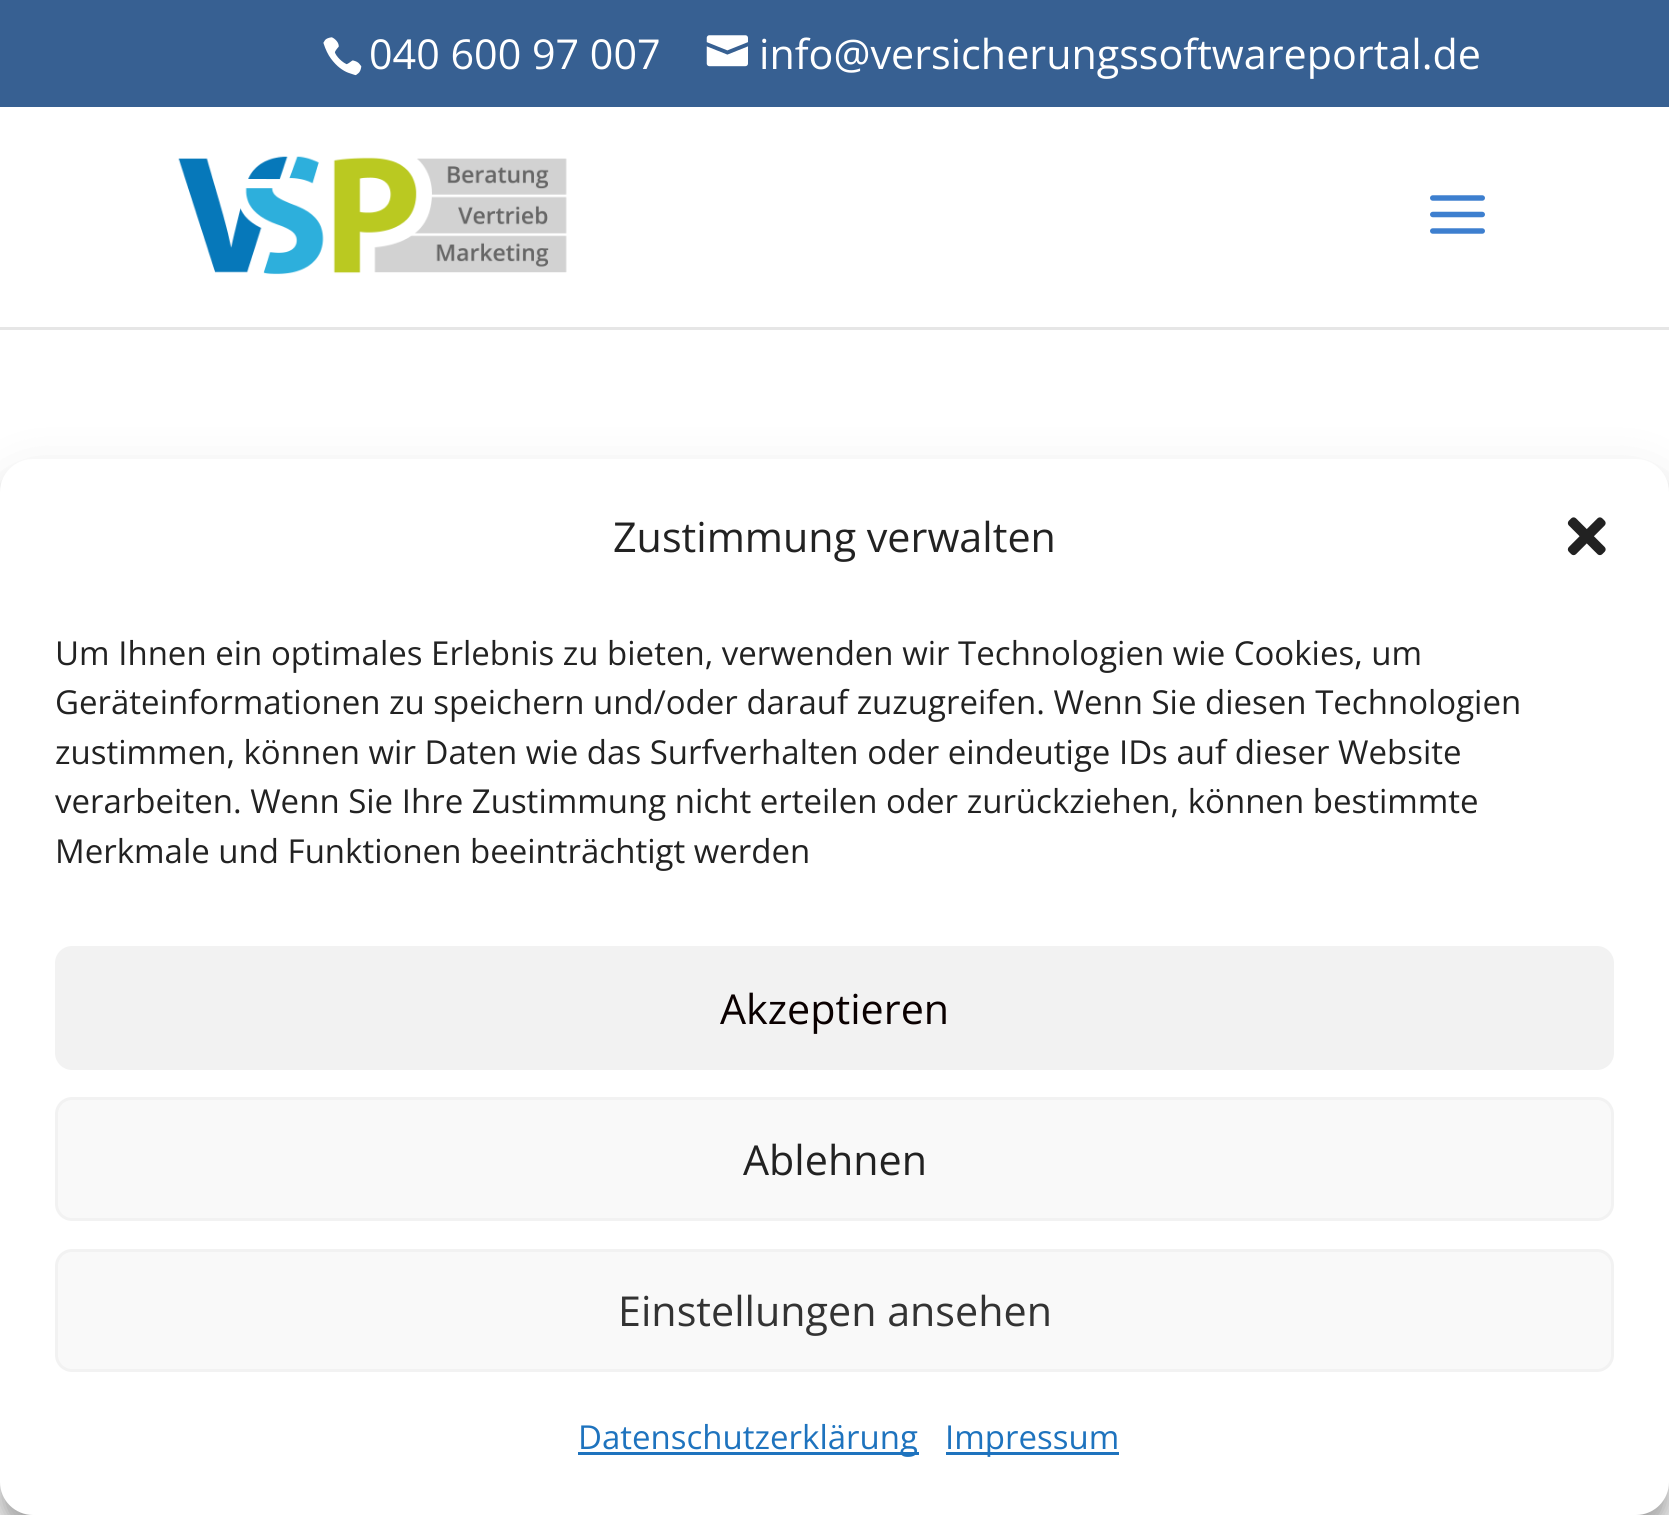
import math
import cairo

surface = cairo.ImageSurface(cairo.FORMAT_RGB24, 1669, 1515)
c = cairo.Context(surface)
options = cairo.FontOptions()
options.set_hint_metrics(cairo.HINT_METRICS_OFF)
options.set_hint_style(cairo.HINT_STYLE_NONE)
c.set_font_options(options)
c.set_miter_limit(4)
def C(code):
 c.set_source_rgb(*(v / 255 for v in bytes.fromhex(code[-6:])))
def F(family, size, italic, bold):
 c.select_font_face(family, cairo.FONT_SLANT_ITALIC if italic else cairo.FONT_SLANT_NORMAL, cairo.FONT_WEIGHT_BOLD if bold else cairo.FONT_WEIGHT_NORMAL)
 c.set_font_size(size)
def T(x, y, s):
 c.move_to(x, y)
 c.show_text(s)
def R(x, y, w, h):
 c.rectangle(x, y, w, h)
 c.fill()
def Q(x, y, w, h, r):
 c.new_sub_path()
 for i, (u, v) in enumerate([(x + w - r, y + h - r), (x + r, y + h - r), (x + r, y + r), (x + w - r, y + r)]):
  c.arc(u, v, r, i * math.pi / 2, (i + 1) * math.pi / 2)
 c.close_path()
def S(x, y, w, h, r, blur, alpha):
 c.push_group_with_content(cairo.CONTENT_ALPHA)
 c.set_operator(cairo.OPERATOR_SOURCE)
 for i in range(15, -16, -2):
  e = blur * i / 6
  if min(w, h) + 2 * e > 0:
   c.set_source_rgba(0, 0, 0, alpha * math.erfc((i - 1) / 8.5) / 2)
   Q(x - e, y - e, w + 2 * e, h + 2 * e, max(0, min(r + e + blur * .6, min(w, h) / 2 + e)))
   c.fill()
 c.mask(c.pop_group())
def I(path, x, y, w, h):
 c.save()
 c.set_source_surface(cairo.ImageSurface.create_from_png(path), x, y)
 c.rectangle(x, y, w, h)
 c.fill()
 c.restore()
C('ffffff')
c.paint()
C('376092')
R(0,0,1669,107)
I('1.png',323,37,39,39)
F('Open Sans',41.25,0,0)
C('ffffff')
T(369,69,'040 600 97 007')
I('2.png',706,35,42,32)
T(759,69,'info@versicherungssoftwareportal.de')
C('e6e6e6')
R(0,327,1669,3)
I('3.png',178,156,389,119)
I('4.png',1430,195,55,39)
C('000000')
S(0,476,1669,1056,33,8,.23)
S(0,487,1669,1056,33,27.5,.19)
C('ffffff')
Q(0,459,1669,1056,33)
c.fill()
C('222222')
T(613,552,'Zustimmung verwalten')
I('5.png',1567,517,39,39)
F('Open Sans',33,0,0)
T(55,665,'Um Ihnen ein optimales Erlebnis zu bieten, verwenden wir Technologien wie Cookies, um')
T(55,714,'Geräteinformationen zu speichern und/oder darauf zuzugreifen. Wenn Sie diesen Technologien')
T(55,764,'zustimmen, können wir Daten wie das Surfverhalten oder eindeutige IDs auf dieser Website')
T(55,813,'verarbeiten. Wenn Sie Ihre Zustimmung nicht erteilen oder zurückziehen, können bestimmte')
T(55,863,'Merkmale und Funktionen beeinträchtigt werden')
C('f2f2f2')
Q(56.5,947.5,1556,121,15.5)
c.fill_preserve()
c.set_line_width(3)
c.stroke()
F('Open Sans',41.25,0,0)
C('0a0000')
T(720,1024,'Akzeptieren')
C('f9f9f9')
Q(56.5,1098.5,1556,121,15.5)
c.fill_preserve()
C('f2f2f2')
c.stroke()
C('222222')
T(743,1175,'Ablehnen')
C('f9f9f9')
Q(56.5,1250.5,1556,120,15.5)
c.fill_preserve()
C('f2f2f2')
c.stroke()
C('333333')
T(618,1326,'Einstellungen ansehen')
C('1e73be')
R(578,1452,341,3)
F('Open Sans',33,0,0)
T(578,1449,'Datenschutzerklärung')
R(946,1452,173,3)
T(945,1449,'Impressum')
surface.write_to_png('o.png')
